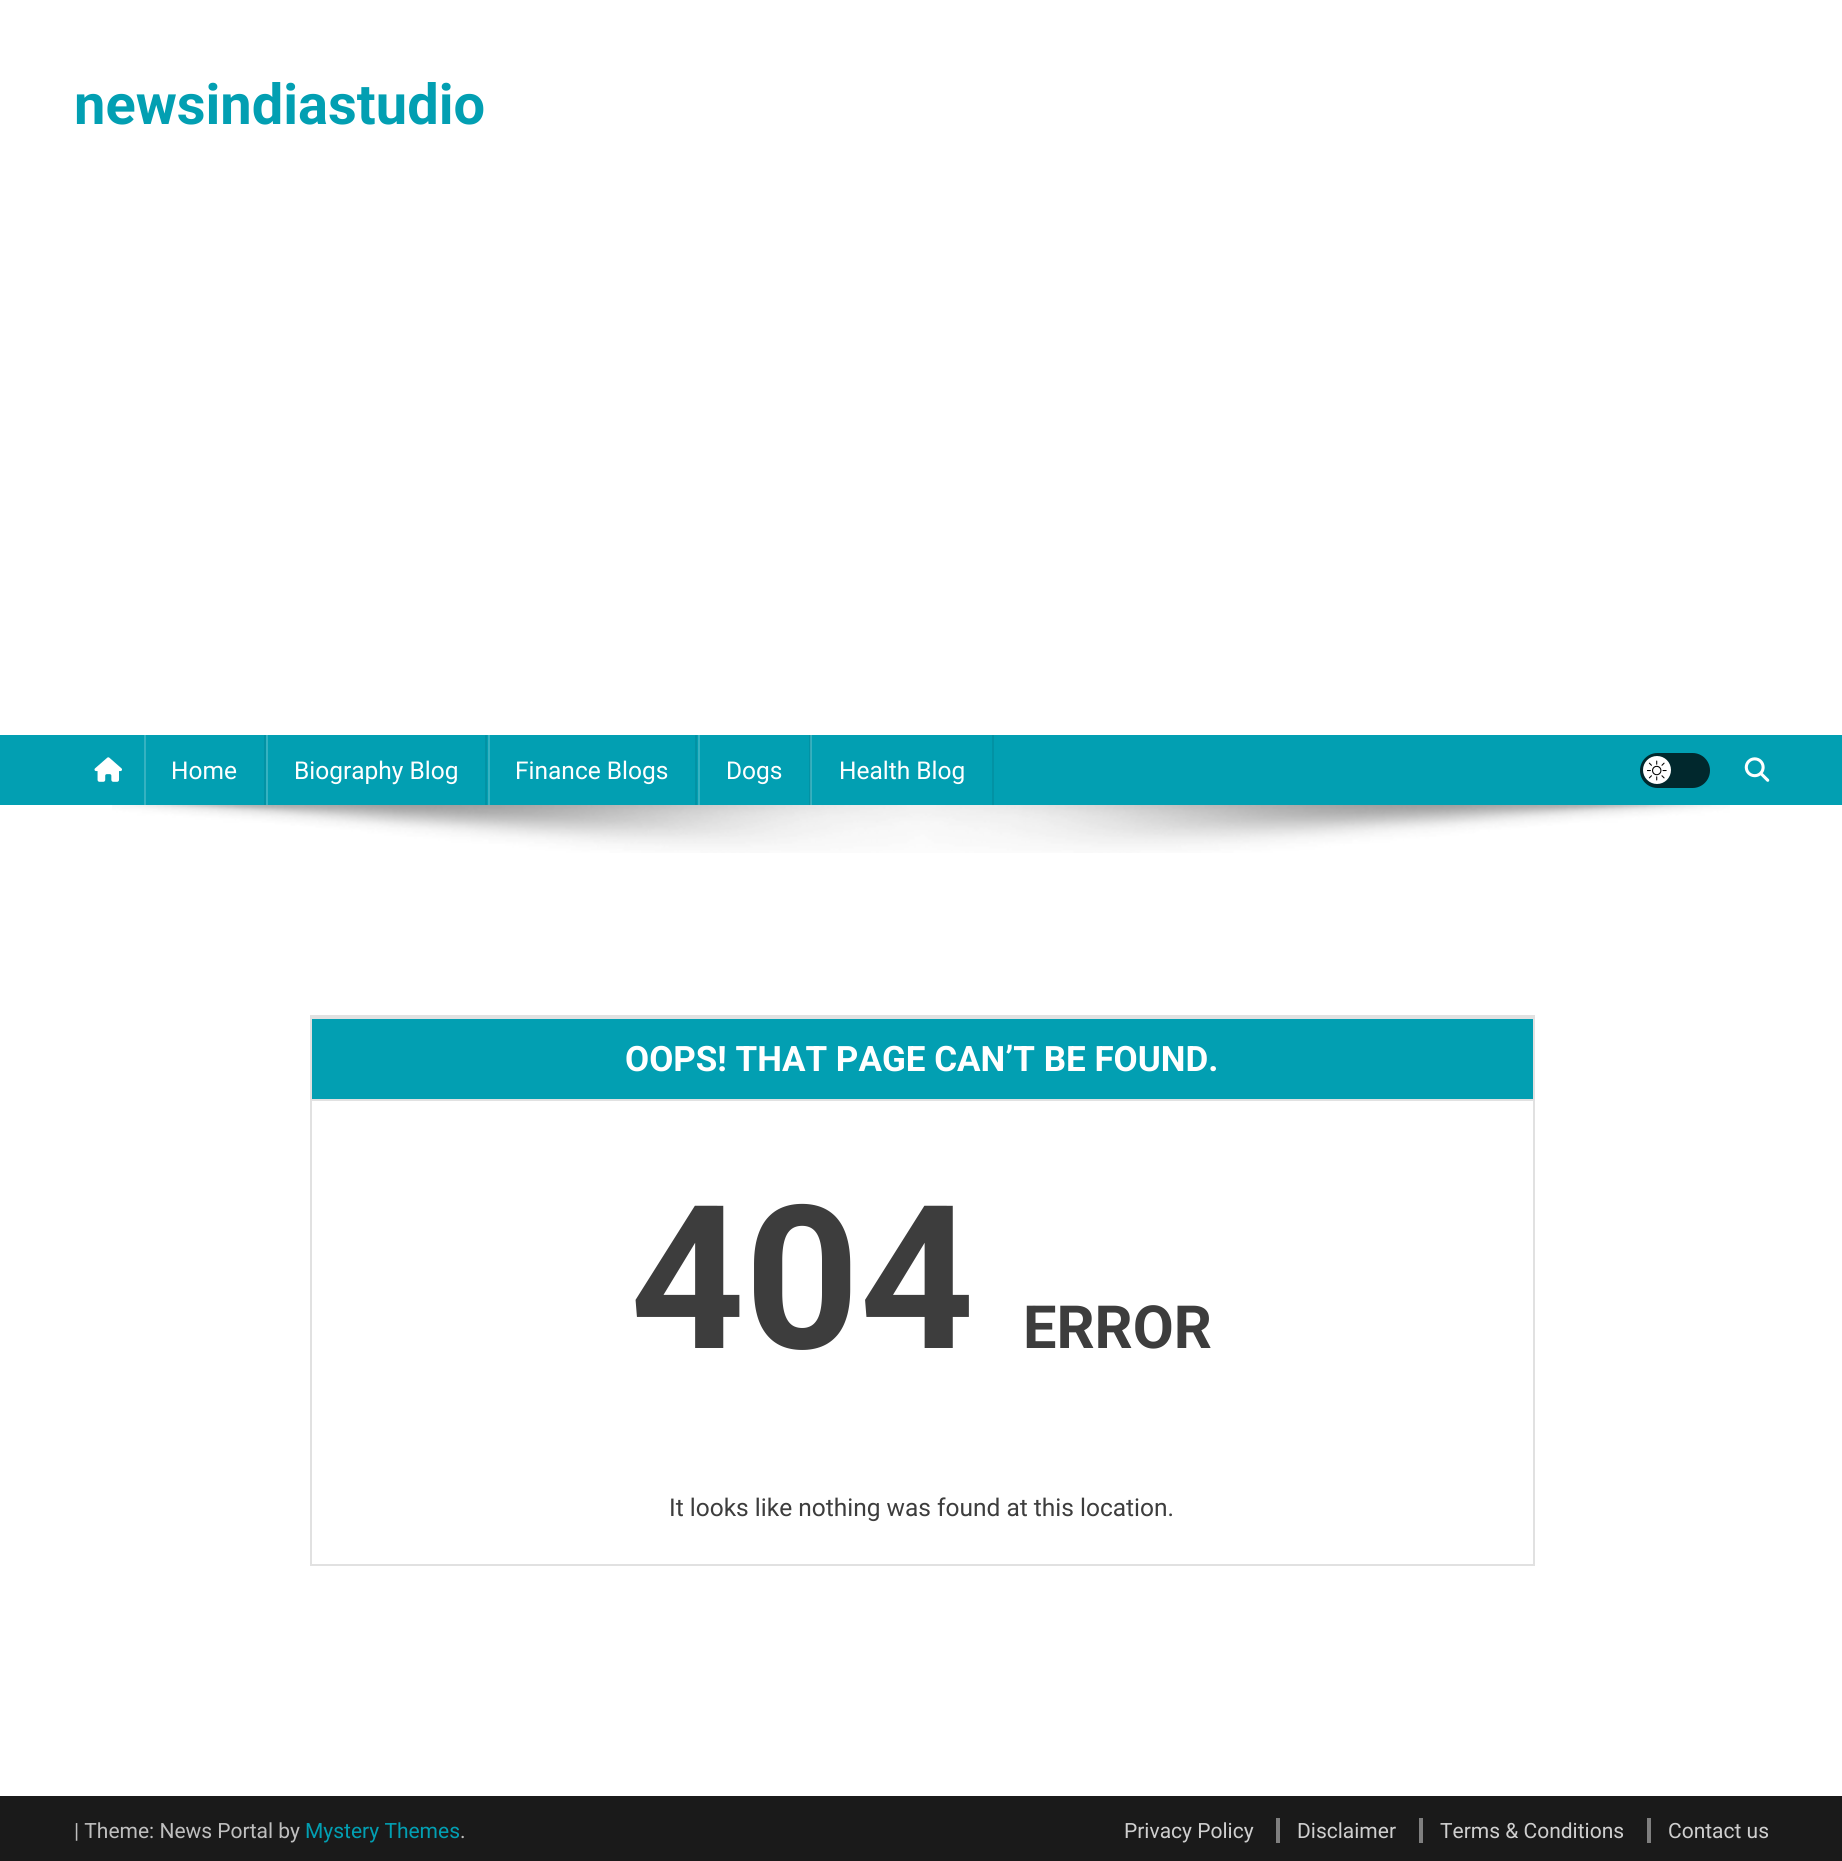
import math
import cairo

surface = cairo.ImageSurface(cairo.FORMAT_RGB24, 1842, 1861)
c = cairo.Context(surface)
options = cairo.FontOptions()
options.set_hint_metrics(cairo.HINT_METRICS_OFF)
options.set_hint_style(cairo.HINT_STYLE_NONE)
c.set_font_options(options)
c.set_miter_limit(4)
def C(code):
 c.set_source_rgb(*(v / 255 for v in bytes.fromhex(code[-6:])))
def F(family, size, italic, bold):
 c.select_font_face(family, cairo.FONT_SLANT_ITALIC if italic else cairo.FONT_SLANT_NORMAL, cairo.FONT_WEIGHT_BOLD if bold else cairo.FONT_WEIGHT_NORMAL)
 c.set_font_size(size)
def T(x, y, s):
 c.move_to(x, y)
 c.show_text(s)
def R(x, y, w, h):
 c.rectangle(x, y, w, h)
 c.fill()
def Q(x, y, w, h, r):
 c.new_sub_path()
 for i, (u, v) in enumerate([(x + w - r, y + h - r), (x + r, y + h - r), (x + r, y + r), (x + w - r, y + r)]):
  c.arc(u, v, r, i * math.pi / 2, (i + 1) * math.pi / 2)
 c.close_path()
def I(path, x, y, w, h):
 c.save()
 c.set_source_surface(cairo.ImageSurface.create_from_png(path), x, y)
 c.rectangle(x, y, w, h)
 c.fill()
 c.restore()
C('ffffff')
c.paint()
F('Roboto',56,0,1)
C('029fb2')
T(74,124,'newsindiastudio')
R(0,735,1842,70)
C('35b2c1')
R(811,735,1,70)
I('1.png',94,757,28,25)
C('0292a4')
R(264,735,2,70)
C('35b2c1')
R(144,735,2,70)
F('Roboto',24.5,0,0)
C('ffffff')
T(171,779,'Home')
C('0292a4')
R(485,735,2,70)
C('35b2c1')
R(266,735,2,70)
C('ffffff')
T(294,779,'Biography Blog')
C('0292a4')
R(695,735,2,70)
C('35b2c1')
R(488,735,2,70)
C('ffffff')
T(515,779,'Finance Blogs')
C('0292a4')
R(809,735,1,70)
C('35a8b6')
R(810,735,1,70)
C('35b2c1')
R(698,735,2,70)
C('ffffff')
T(726,779,'Dogs')
C('0292a4')
R(992,735,2,70)
C('ffffff')
T(839,779,'Health Blog')
C('01282d')
Q(1640,753,70,35,17.5)
c.fill()
C('ffffff')
c.arc(1657,770,14,0,2 * math.pi)
c.fill()
I('2.png',1647,760,20,21)
I('3.png',1744,757,26,25)
I('4.png',112,805,1618,48)
c.rectangle(311,1016,1223,549)
C('e1e1e1')
c.stroke()
C('029fb2')
R(312,1019,1221,80)
C('e1e1e1')
R(312,1017,1221,2)
R(312,1099,1221,2)
F('Roboto',35,0,1)
C('ffffff')
T(625,1071,'OOPS! THAT PAGE CAN’T BE FOUND.')
F('Roboto',200,0,1)
C('3d3d3d')
T(630,1348,'404')
F('Roboto',59.5,0,1)
T(1023,1348,'ERROR')
F('Roboto',24.5,0,0)
T(669,1516,'It looks like nothing was found at this location.')
C('1a1a1a')
R(0,1796,1842,65)
F('Roboto',21,0,0)
C('bfbfbf')
T(74,1838,'| Theme: News Portal by')
C('029fb2')
T(305,1838,'Mystery Themes')
C('bfbfbf')
T(460,1838,'.')
C('cfcfcf')
T(1124,1838,'Privacy Policy')
T(1297,1838,'Disclaimer')
C('7f7f7f')
R(1276,1818,4,25)
C('cfcfcf')
T(1440,1838,'Terms & Conditions')
C('7f7f7f')
R(1419,1818,4,25)
C('cfcfcf')
T(1668,1838,'Contact us')
C('7f7f7f')
R(1647,1818,4,25)
surface.write_to_png('o.png')
